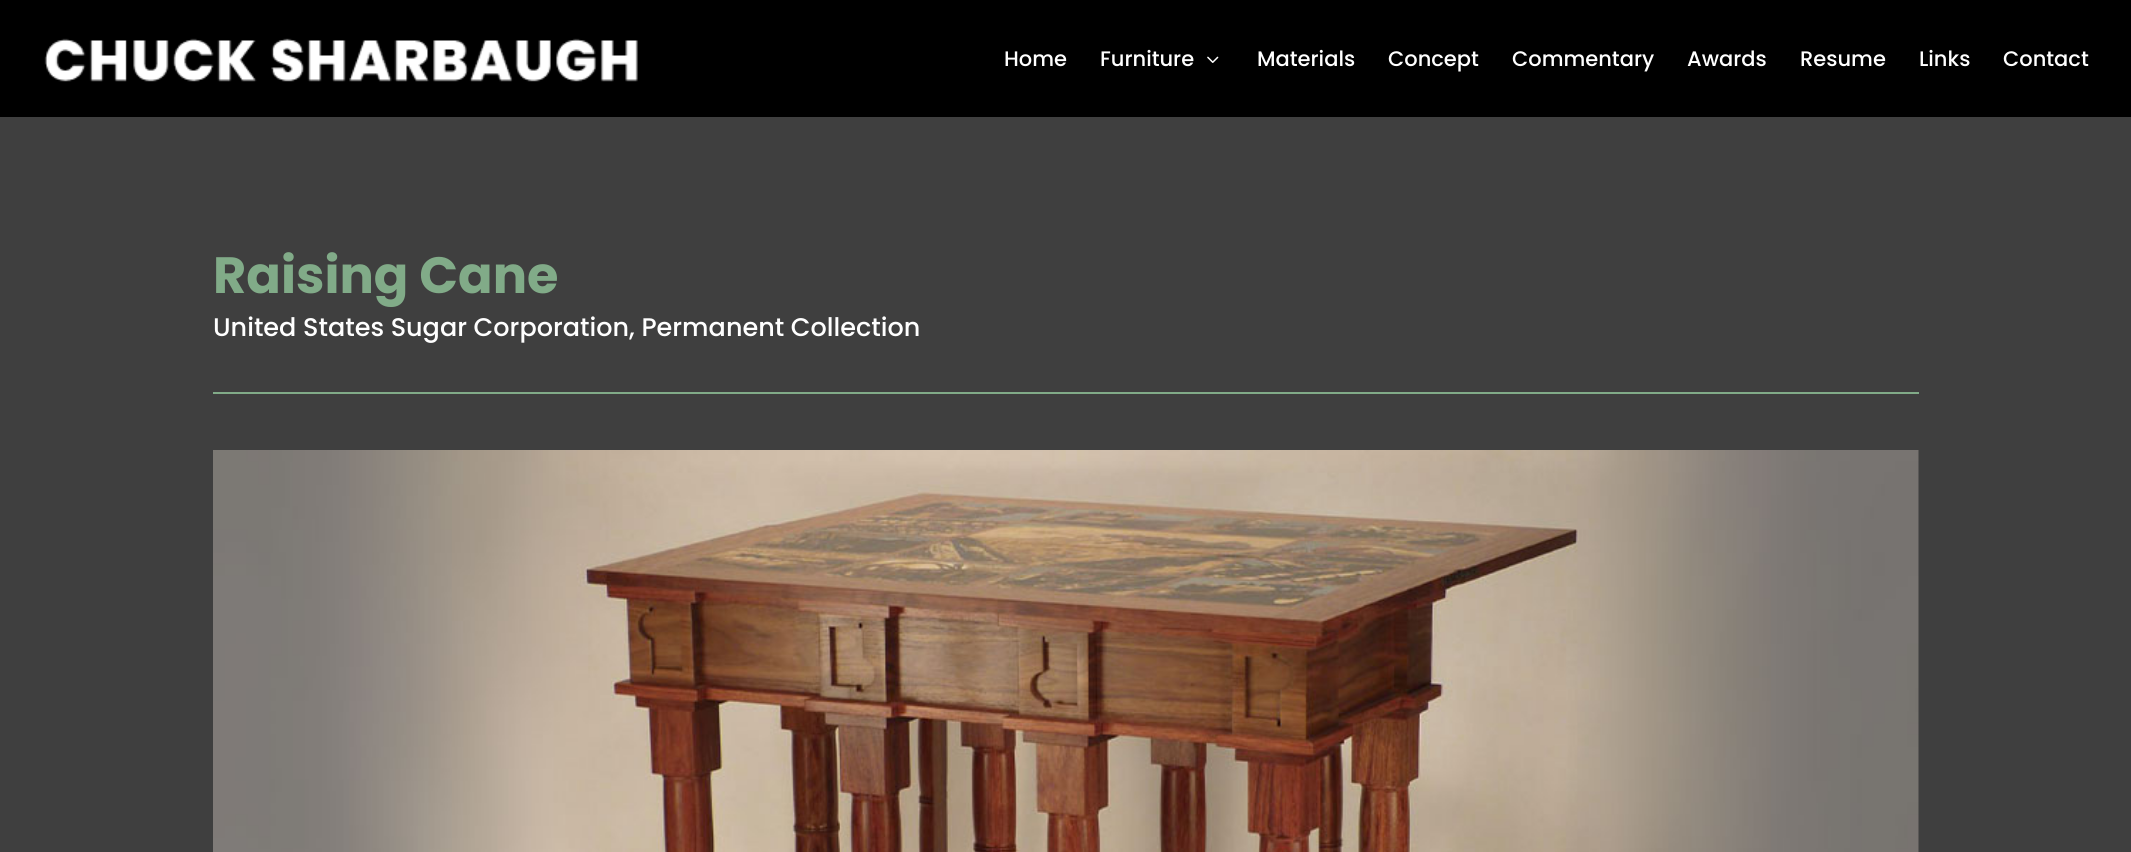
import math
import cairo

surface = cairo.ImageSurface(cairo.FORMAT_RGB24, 2131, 852)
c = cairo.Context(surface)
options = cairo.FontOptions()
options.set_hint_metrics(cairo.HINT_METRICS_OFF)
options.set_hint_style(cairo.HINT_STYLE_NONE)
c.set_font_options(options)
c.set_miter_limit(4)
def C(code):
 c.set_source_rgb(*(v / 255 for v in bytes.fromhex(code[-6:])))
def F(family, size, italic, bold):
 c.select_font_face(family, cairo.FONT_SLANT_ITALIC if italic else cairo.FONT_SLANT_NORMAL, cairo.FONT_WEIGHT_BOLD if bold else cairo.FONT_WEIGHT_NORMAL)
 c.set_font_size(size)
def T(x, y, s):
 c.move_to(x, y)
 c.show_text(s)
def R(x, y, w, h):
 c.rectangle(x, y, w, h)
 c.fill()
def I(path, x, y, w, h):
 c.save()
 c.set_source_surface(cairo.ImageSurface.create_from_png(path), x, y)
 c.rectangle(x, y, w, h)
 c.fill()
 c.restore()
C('000000')
c.paint()
I('1.png',44,38,594,44)
F('Poppins Medium',21,0,0)
C('ffffff')
T(1004,66,'Home')
T(1100,66,'Furniture')
I('2.png',1207,56,12,7)
T(1257,66,'Materials')
T(1388,66,'Concept')
T(1512,66,'Commentary')
T(1687,66,'Awards')
T(1800,66,'Resume')
T(1919,66,'Links')
T(2003,66,'Contact')
C('3f3f3f')
R(0,117,2131,735)
C('81ab88')
R(213,392,1706,2)
F('Poppins',51,0,1)
T(213,293,'Raising Cane')
F('Poppins Medium',25.5,0,0)
C('ffffff')
T(213,336,'United States Sugar Corporation, Permanent Collection')
I('3.png',213,450,1706,402)
surface.write_to_png('o.png')
